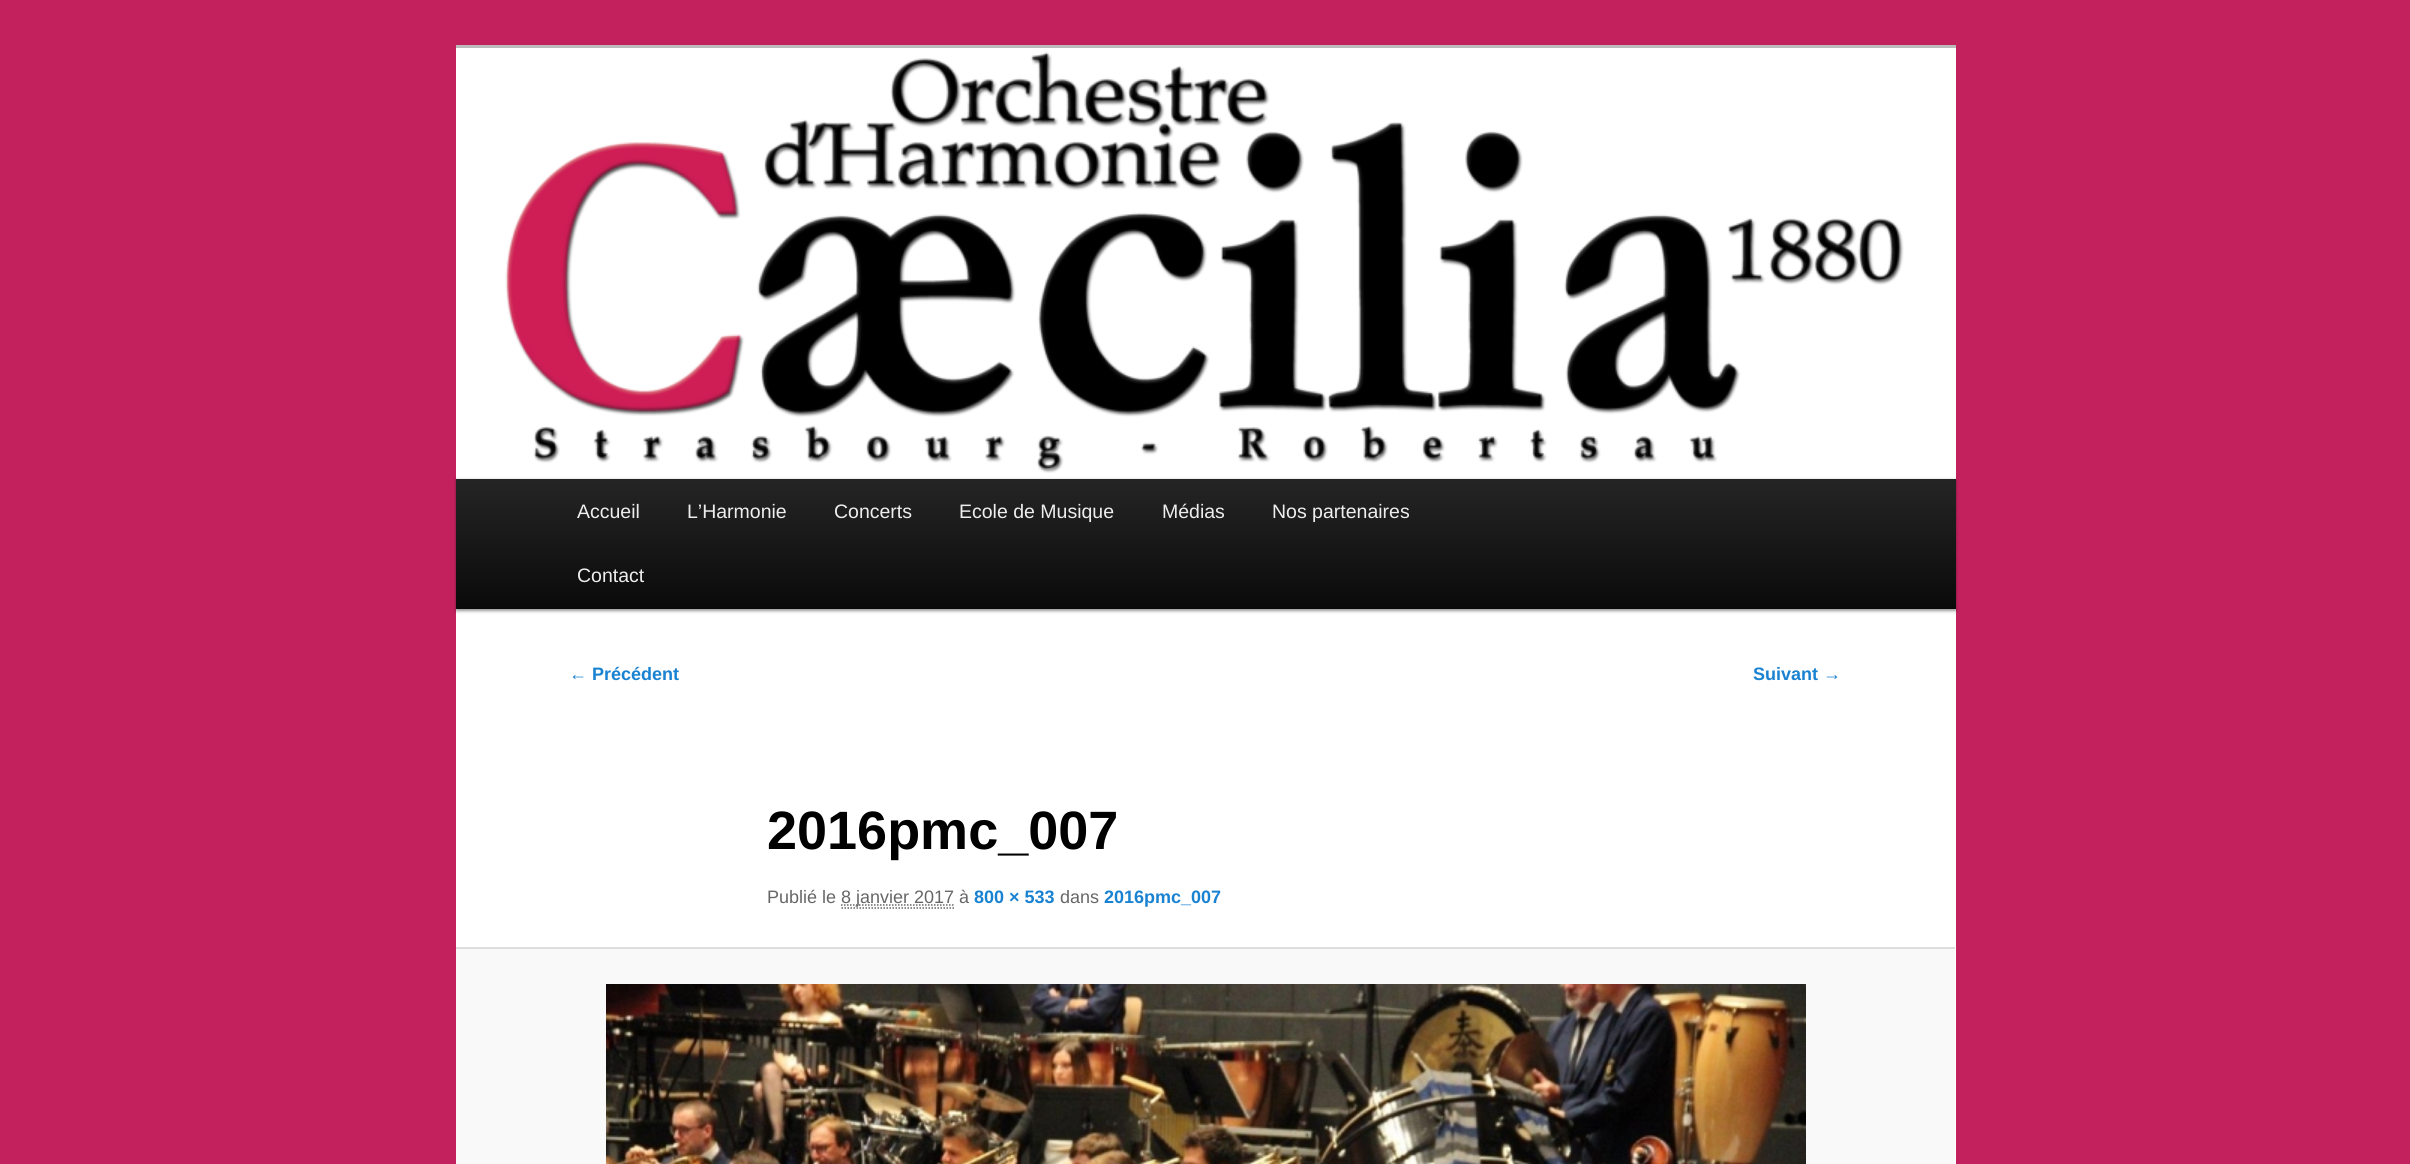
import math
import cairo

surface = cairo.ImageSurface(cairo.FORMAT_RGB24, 2410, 1164)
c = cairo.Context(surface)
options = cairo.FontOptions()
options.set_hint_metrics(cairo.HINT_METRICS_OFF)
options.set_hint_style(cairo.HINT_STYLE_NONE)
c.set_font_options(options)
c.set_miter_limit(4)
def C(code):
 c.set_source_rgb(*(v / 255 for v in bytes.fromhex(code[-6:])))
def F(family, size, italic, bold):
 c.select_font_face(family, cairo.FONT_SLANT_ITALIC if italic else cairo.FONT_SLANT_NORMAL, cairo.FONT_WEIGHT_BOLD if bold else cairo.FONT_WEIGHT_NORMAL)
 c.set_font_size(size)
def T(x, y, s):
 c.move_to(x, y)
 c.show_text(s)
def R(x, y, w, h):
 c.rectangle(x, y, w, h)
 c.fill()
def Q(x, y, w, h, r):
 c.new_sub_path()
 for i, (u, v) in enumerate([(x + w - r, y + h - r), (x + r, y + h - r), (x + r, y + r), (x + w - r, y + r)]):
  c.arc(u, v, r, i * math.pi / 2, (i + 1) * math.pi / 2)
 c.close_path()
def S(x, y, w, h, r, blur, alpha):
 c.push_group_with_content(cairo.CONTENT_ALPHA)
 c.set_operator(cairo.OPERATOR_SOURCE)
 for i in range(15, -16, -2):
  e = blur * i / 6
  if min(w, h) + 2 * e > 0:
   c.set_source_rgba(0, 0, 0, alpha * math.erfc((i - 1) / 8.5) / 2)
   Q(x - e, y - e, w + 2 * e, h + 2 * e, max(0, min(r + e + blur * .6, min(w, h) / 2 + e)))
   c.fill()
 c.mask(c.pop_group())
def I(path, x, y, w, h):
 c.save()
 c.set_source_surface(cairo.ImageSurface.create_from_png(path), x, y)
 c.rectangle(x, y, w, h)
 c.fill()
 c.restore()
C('c3215d')
c.paint()
C('ffffff')
R(456,48,1500,1116)
C('bbbbbb')
R(456,45,1500,3)
I('1.png',505,52,1399,421)
C('000000')
S(456,480,1500,131,0,1.5,.4)
gradient = cairo.LinearGradient(1206,478,1206,609)
gradient.add_color_stop_rgba(0,0.145,0.145,0.145,1)
gradient.add_color_stop_rgba(1,0.039,0.039,0.039,1)
c.set_source(gradient)
R(456,479,1500,130)
F('Liberation Sans',19.5,0,0)
C('eeeeee')
T(577,518,'Accueil')
T(687,518,'L’Harmonie')
T(834,518,'Concerts')
T(959,518,'Ecole de Musique')
T(1162,518,'Médias')
T(1272,518,'Nos partenaires')
T(577,582,'Contact')
F('Liberation Sans',18,0,1)
C('1982d1')
T(569,680,'← Précédent')
T(1753,680,'Suivant →')
F('Liberation Sans',54,0,1)
C('000000')
T(767,849,'2016pmc_007')
F('Liberation Sans',18,0,0)
C('666666')
T(767,903,'Publié le')
c.new_path()
c.move_to(841,905)
c.line_to(954,905)
c.set_line_width(1.5)
c.set_dash([1.5,1.5])
c.stroke()
T(841,903,'8 janvier 2017 à')
c.new_path()
c.move_to(841.5,908)
c.line_to(954,908)
c.stroke()
F('Liberation Sans',18,0,1)
C('1982d1')
T(974,903,'800 × 533')
F('Liberation Sans',18,0,0)
C('666666')
T(1060,903,'dans')
F('Liberation Sans',18,0,1)
C('1982d1')
T(1104,903,'2016pmc_007')
C('f9f9f9')
R(456,949,1499,215)
C('dddddd')
R(456,947,1499,2)
I('2.png',606,984,1200,180)
surface.write_to_png('o.png')
